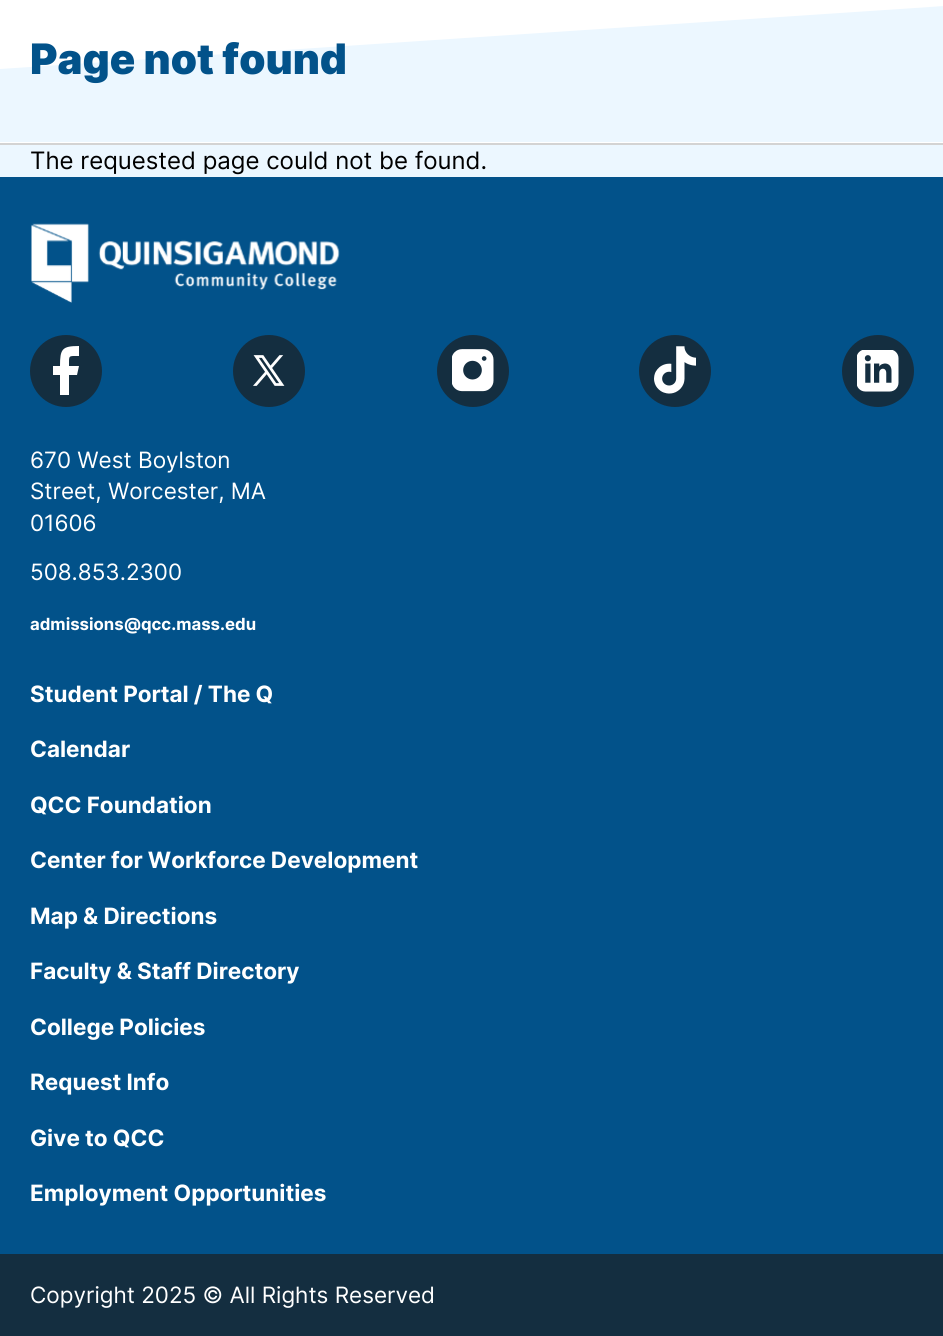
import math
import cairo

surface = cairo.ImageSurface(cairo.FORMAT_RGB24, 943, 1336)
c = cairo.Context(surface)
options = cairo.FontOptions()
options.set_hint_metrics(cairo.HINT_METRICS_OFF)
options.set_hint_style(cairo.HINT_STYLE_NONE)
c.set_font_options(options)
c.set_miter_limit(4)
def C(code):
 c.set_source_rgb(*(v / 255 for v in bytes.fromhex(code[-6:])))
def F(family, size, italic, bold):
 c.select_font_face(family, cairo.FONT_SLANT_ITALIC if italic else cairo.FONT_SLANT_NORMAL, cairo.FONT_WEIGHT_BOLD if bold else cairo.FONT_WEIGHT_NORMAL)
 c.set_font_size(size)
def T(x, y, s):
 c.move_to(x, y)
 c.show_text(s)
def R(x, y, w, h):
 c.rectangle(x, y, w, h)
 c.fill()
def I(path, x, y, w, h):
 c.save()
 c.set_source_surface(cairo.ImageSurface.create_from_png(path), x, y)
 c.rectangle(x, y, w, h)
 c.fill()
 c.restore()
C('ffffff')
c.paint()
C('ecf7ff')
c.new_path()
c.move_to(0,-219)
c.line_to(0,177)
c.line_to(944,177)
c.line_to(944,-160)
c.close_path()
c.fill()
C('d3d3d3')
R(0,143,943,2)
C('ffffff')
R(0,0,943,143)
C('ecf7ff')
c.new_path()
c.move_to(0,69)
c.line_to(0,142)
c.line_to(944,142)
c.line_to(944,6)
c.close_path()
c.fill()
F('Inter Black',42,0,0)
C('02528a')
T(30,74,'Page not found')
F('Inter',24,0,0)
C('000000')
T(30,169,'The requested page could not be found.')
C('02528a')
R(0,177,943,1077)
I('1.png',31,223,309,80)
C('142e40')
c.arc(66,371,36,0,2 * math.pi)
c.fill()
c.save()
c.rectangle(53,345,27,51)
c.clip()
C('ffffff')
c.new_path()
c.move_to(79,346)
c.curve_to(62,346,60,349,60,366)
c.line_to(52,366)
c.line_to(52,375)
c.line_to(60,375)
c.line_to(60,395)
c.line_to(69,395)
c.line_to(69,375)
c.line_to(77,375)
c.line_to(79,366)
c.line_to(69,366)
c.curve_to(69,355,68,356,79,356)
c.close_path()
c.fill()
c.restore()
c.arc(269,371,36,0,2 * math.pi)
c.fill()
I('2.png',253,355,32,31)
c.arc(473,371,36,0,2 * math.pi)
c.fill()
I('3.png',452,349,42,43)
c.arc(675,371,36,0,2 * math.pi)
c.fill()
I('4.png',654,346,42,48)
c.arc(878,371,36,0,2 * math.pi)
c.fill()
I('5.png',857,350,42,42)
F('Inter',22.5,0,0)
C('ffffff')
T(30,468,'670 West Boylston')
T(30,499,'Street, Worcester, MA')
T(30,531,'01606')
T(30,580,'508.853.2300')
F('Inter',16.75,0,1)
T(30,630,'admissions@qcc.mass.edu')
F('Inter',22.5,0,1)
T(30,702,'Student Portal / The Q')
T(30,757,'Calendar')
T(30,813,'QCC Foundation')
T(30,868,'Center for Workforce Development')
T(30,924,'Map & Directions')
T(30,979,'Faculty & Staff Directory')
T(30,1035,'College Policies')
T(30,1090,'Request Info')
T(30,1146,'Give to QCC')
T(30,1201,'Employment Opportunities')
C('142e40')
R(0,1254,943,82)
F('Inter',22.5,0,0)
C('ffffff')
T(30,1303,'Copyright 2025 © All Rights Reserved')
surface.write_to_png('o.png')
